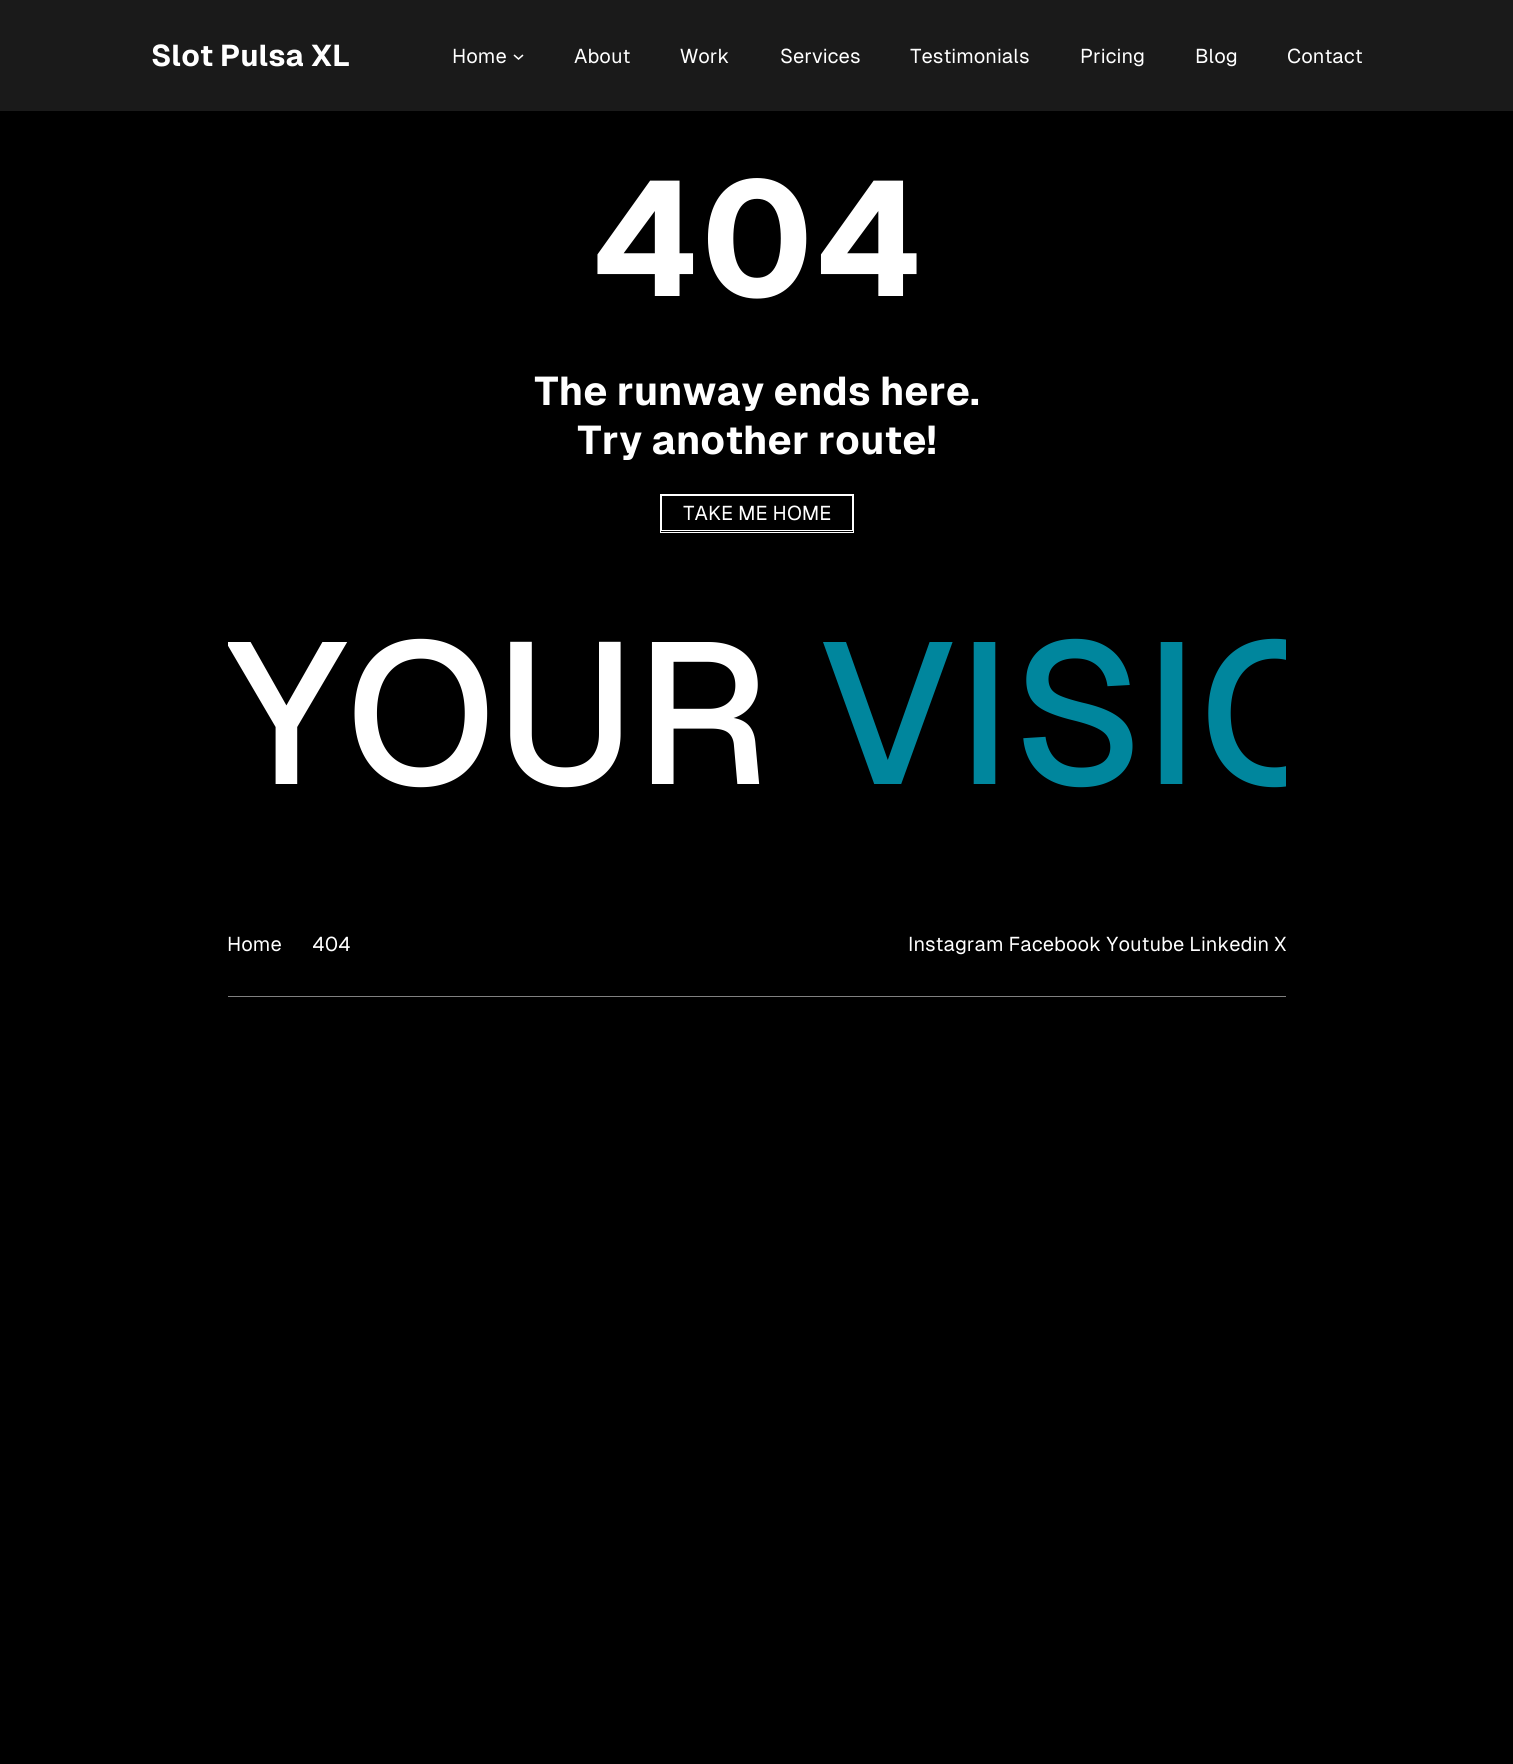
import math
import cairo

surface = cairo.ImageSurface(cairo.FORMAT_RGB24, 1513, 1764)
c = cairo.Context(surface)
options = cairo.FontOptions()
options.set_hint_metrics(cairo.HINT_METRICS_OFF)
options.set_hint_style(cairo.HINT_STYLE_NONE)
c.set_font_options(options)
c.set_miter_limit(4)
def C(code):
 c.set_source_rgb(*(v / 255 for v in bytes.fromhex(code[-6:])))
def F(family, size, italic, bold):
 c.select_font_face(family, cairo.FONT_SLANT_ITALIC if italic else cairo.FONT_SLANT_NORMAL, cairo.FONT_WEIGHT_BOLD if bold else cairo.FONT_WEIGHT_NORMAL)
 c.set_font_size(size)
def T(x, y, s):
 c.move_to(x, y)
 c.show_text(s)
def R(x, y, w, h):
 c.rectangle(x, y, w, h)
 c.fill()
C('000000')
c.paint()
C('1a1a1a')
R(0,0,1513,111)
F('Geist',30,0,1)
C('ffffff')
T(151,66,'Slot Pulsa XL')
F('Geist',20,0,0)
T(452,63,'Home')
c.new_path()
c.move_to(514,55)
c.line_to(518.5,59)
c.line_to(523,55)
c.set_line_width(1.5)
c.stroke()
T(574,63,'About')
T(680,63,'Work')
T(780,63,'Services')
T(910,63,'Testimonials')
T(1080,63,'Pricing')
T(1195,63,'Blog')
T(1287,63,'Contact')
F('Geist',162.5,0,1)
T(590,296,'404')
F('Geist',40,0,1)
T(534,405,'The runway ends here.')
T(577,454,'Try another route!')
c.rectangle(660.5,494.5,193,38)
c.set_line_width(1)
c.stroke()
c.rectangle(661.5,495.5,191,35)
c.stroke()
F('Geist',20,0,0)
T(683,520,'TAKE ME HOME')
c.save()
c.rectangle(228,563,1058,300)
c.clip()
F('Geist Medium',200,0,0)
T(227,784,'YOUR')
C('00869d')
T(819,784,'VISIO')
c.restore()
C('808080')
R(228,996,1058,1)
C('ffffff')
T(227,951,'Home')
T(312,951,'404')
T(908,951,'Instagram Facebook Youtube Linkedin X')
surface.write_to_png('o.png')
